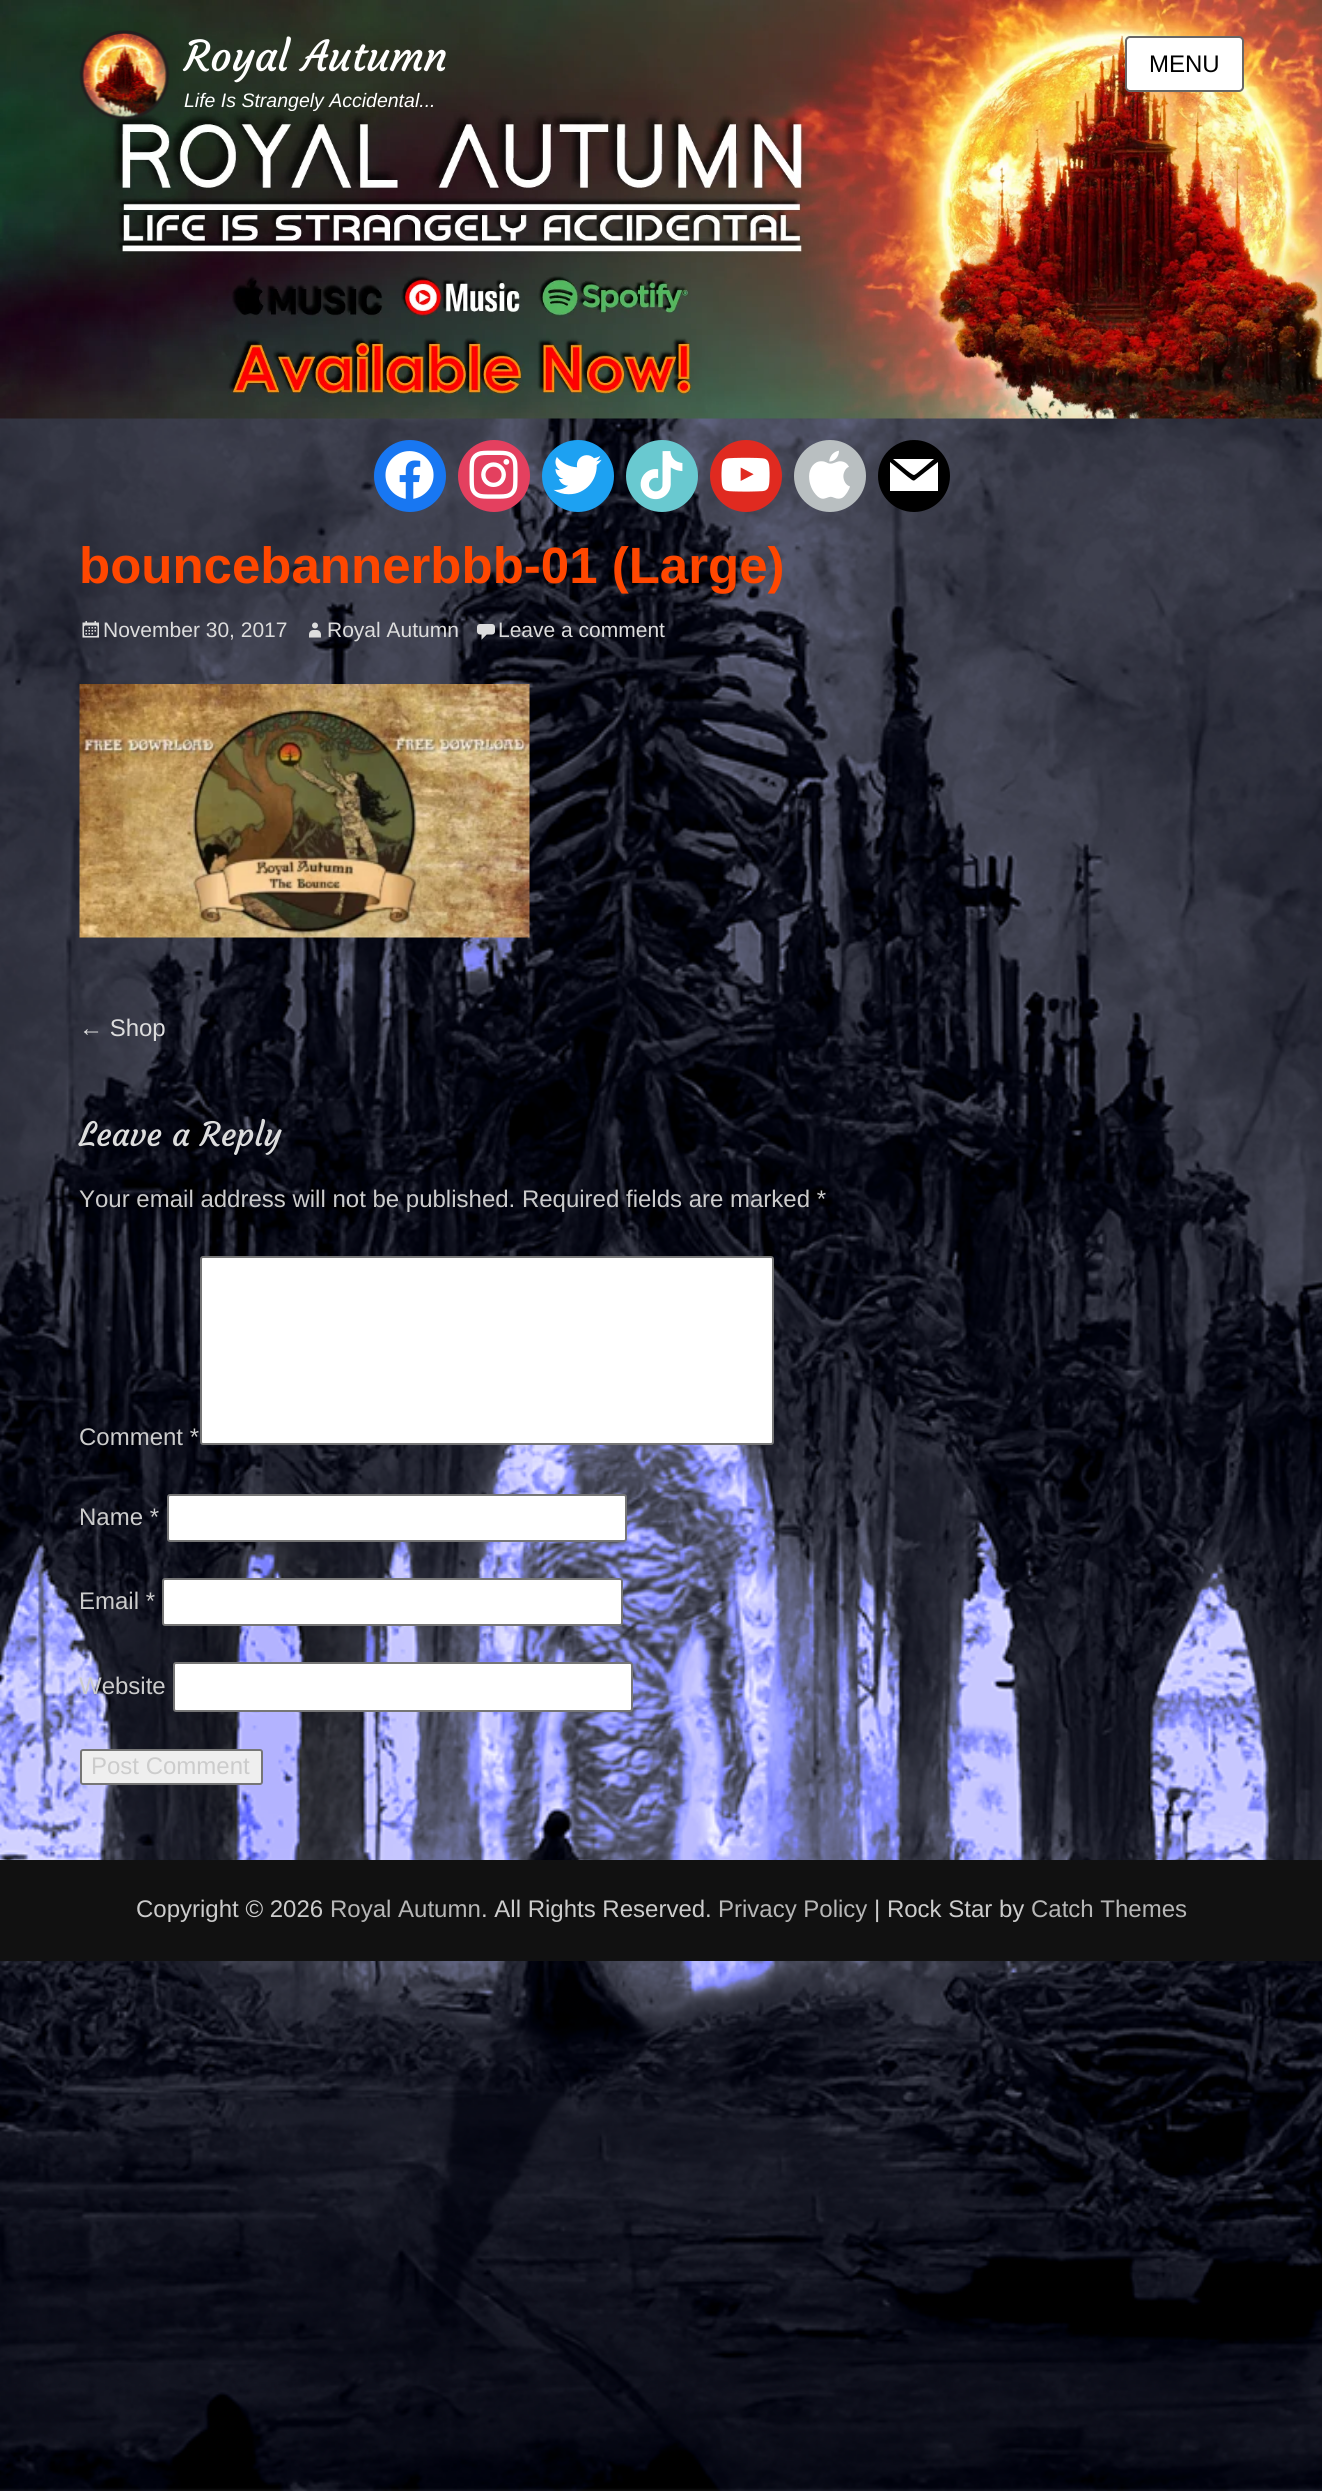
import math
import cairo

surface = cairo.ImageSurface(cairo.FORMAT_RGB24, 1322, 2491)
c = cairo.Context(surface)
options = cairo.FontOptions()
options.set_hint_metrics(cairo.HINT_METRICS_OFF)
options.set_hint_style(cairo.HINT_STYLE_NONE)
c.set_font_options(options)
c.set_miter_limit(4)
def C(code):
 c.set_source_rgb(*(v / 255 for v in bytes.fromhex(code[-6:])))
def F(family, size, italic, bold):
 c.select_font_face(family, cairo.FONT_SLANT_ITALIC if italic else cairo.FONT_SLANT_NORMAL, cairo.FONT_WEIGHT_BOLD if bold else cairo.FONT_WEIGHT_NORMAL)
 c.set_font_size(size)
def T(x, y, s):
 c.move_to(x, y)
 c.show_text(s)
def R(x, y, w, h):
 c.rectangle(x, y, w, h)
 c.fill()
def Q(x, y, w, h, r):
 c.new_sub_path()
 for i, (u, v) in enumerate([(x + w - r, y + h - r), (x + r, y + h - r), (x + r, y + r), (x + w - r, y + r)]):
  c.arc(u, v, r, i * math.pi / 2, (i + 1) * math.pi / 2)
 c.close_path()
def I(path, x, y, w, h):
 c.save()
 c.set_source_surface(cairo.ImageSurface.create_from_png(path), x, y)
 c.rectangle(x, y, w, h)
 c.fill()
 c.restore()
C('ffffff')
c.paint()
I('1.png',0,418,1322,2073)
I('2.png',0,0,1322,419)
I('3.png',79,30,91,90)
F('Courgette',42,0,0)
C('ffffff')
T(184,71,'Royal Autumn')
F('Liberation Sans',19.5,1,0)
T(184,107,'Life Is Strangely Accidental...')
Q(1126,37,117,54,4)
c.fill_preserve()
C('666666')
c.stroke()
F('Liberation Sans',24,0,0)
C('000000')
T(1149,72,'MENU')
C('1877f2')
c.new_path()
c.arc(410,476,36,0,2 * math.pi)
c.fill()
I('4.png',385,451,49,48)
C('e4405f')
c.arc(494,476,36,0,2 * math.pi)
c.fill()
I('5.png',469,450,49,49)
C('1da1f2')
c.arc(578,476,36,0,2 * math.pi)
c.fill()
I('6.png',553,455,49,40)
C('69c9d0')
c.arc(662,476,36,0,2 * math.pi)
c.fill()
I('7.png',640,451,43,49)
C('e02a20')
c.arc(746,476,36,0,2 * math.pi)
c.fill()
I('8.png',721,457,49,35)
C('b9bfc1')
c.arc(830,476,36,0,2 * math.pi)
c.fill()
I('9.png',809,450,41,49)
C('000000')
c.arc(914,476,36,0,2 * math.pi)
c.fill()
C('ffffff')
c.new_path()
c.move_to(915,480)
c.curve_to(913,482,910,478,908,477)
c.line_to(890,462)
c.line_to(890,491)
c.line_to(938,491)
c.line_to(938,462)
c.close_path()
c.move_to(914,475)
c.curve_to(916,475,931,461,934,459)
c.line_to(893,459)
c.curve_to(896,461,911,475,914,475)
c.close_path()
c.fill()
F('Liberation Sans',51,0,1)
C('ff4700')
T(79,583,'bouncebannerbbb-01 (Large)')
I('10.png',82,621,17,17)
F('Liberation Sans',21,0,0)
C('dddddd')
T(103,637,'November 30, 2017')
I('11.png',309,622,12,16)
T(327,637,'Royal Autumn')
I('12.png',477,624,18,16)
T(498,637,'Leave a comment')
I('13.png',79,684,451,254)
F('Liberation Sans',24,0,0)
T(79,1036,'← Shop')
F('Courgette',33,0,0)
T(79,1146,'Leave a Reply')
F('Liberation Sans',24,0,0)
C('cccccc')
T(79,1207,'Your email address will not be published. Required fields are marked *')
T(79,1445,'Comment *')
C('ffffff')
Q(201,1257,572,187,2)
c.fill_preserve()
C('767676')
c.stroke()
C('cccccc')
T(79,1525,'Name *')
C('ffffff')
Q(168,1495,458,46,2)
c.fill_preserve()
C('767676')
c.stroke()
C('cccccc')
T(79,1609,'Email *')
C('ffffff')
Q(163,1579,459,46,2)
c.fill_preserve()
C('767676')
c.stroke()
C('cccccc')
T(79,1694,'Website')
C('ffffff')
Q(174,1663,458,48,2)
c.fill_preserve()
C('767676')
c.stroke()
C('efefef')
Q(81,1750,181,34,2)
c.fill_preserve()
C('767676')
c.stroke()
C('cccccc')
T(91,1774,'Post Comment')
C('111111')
R(0,1860,1322,101)
C('cccccc')
T(136,1917,'Copyright © 2026')
C('b7b7b7')
T(330,1917,'Royal Autumn')
C('cccccc')
T(481,1917,'. All Rights Reserved.')
C('b7b7b7')
T(718,1917,'Privacy Policy')
C('cccccc')
T(874,1917,'| Rock Star by')
C('b7b7b7')
T(1031,1917,'Catch Themes')
surface.write_to_png('o.png')
